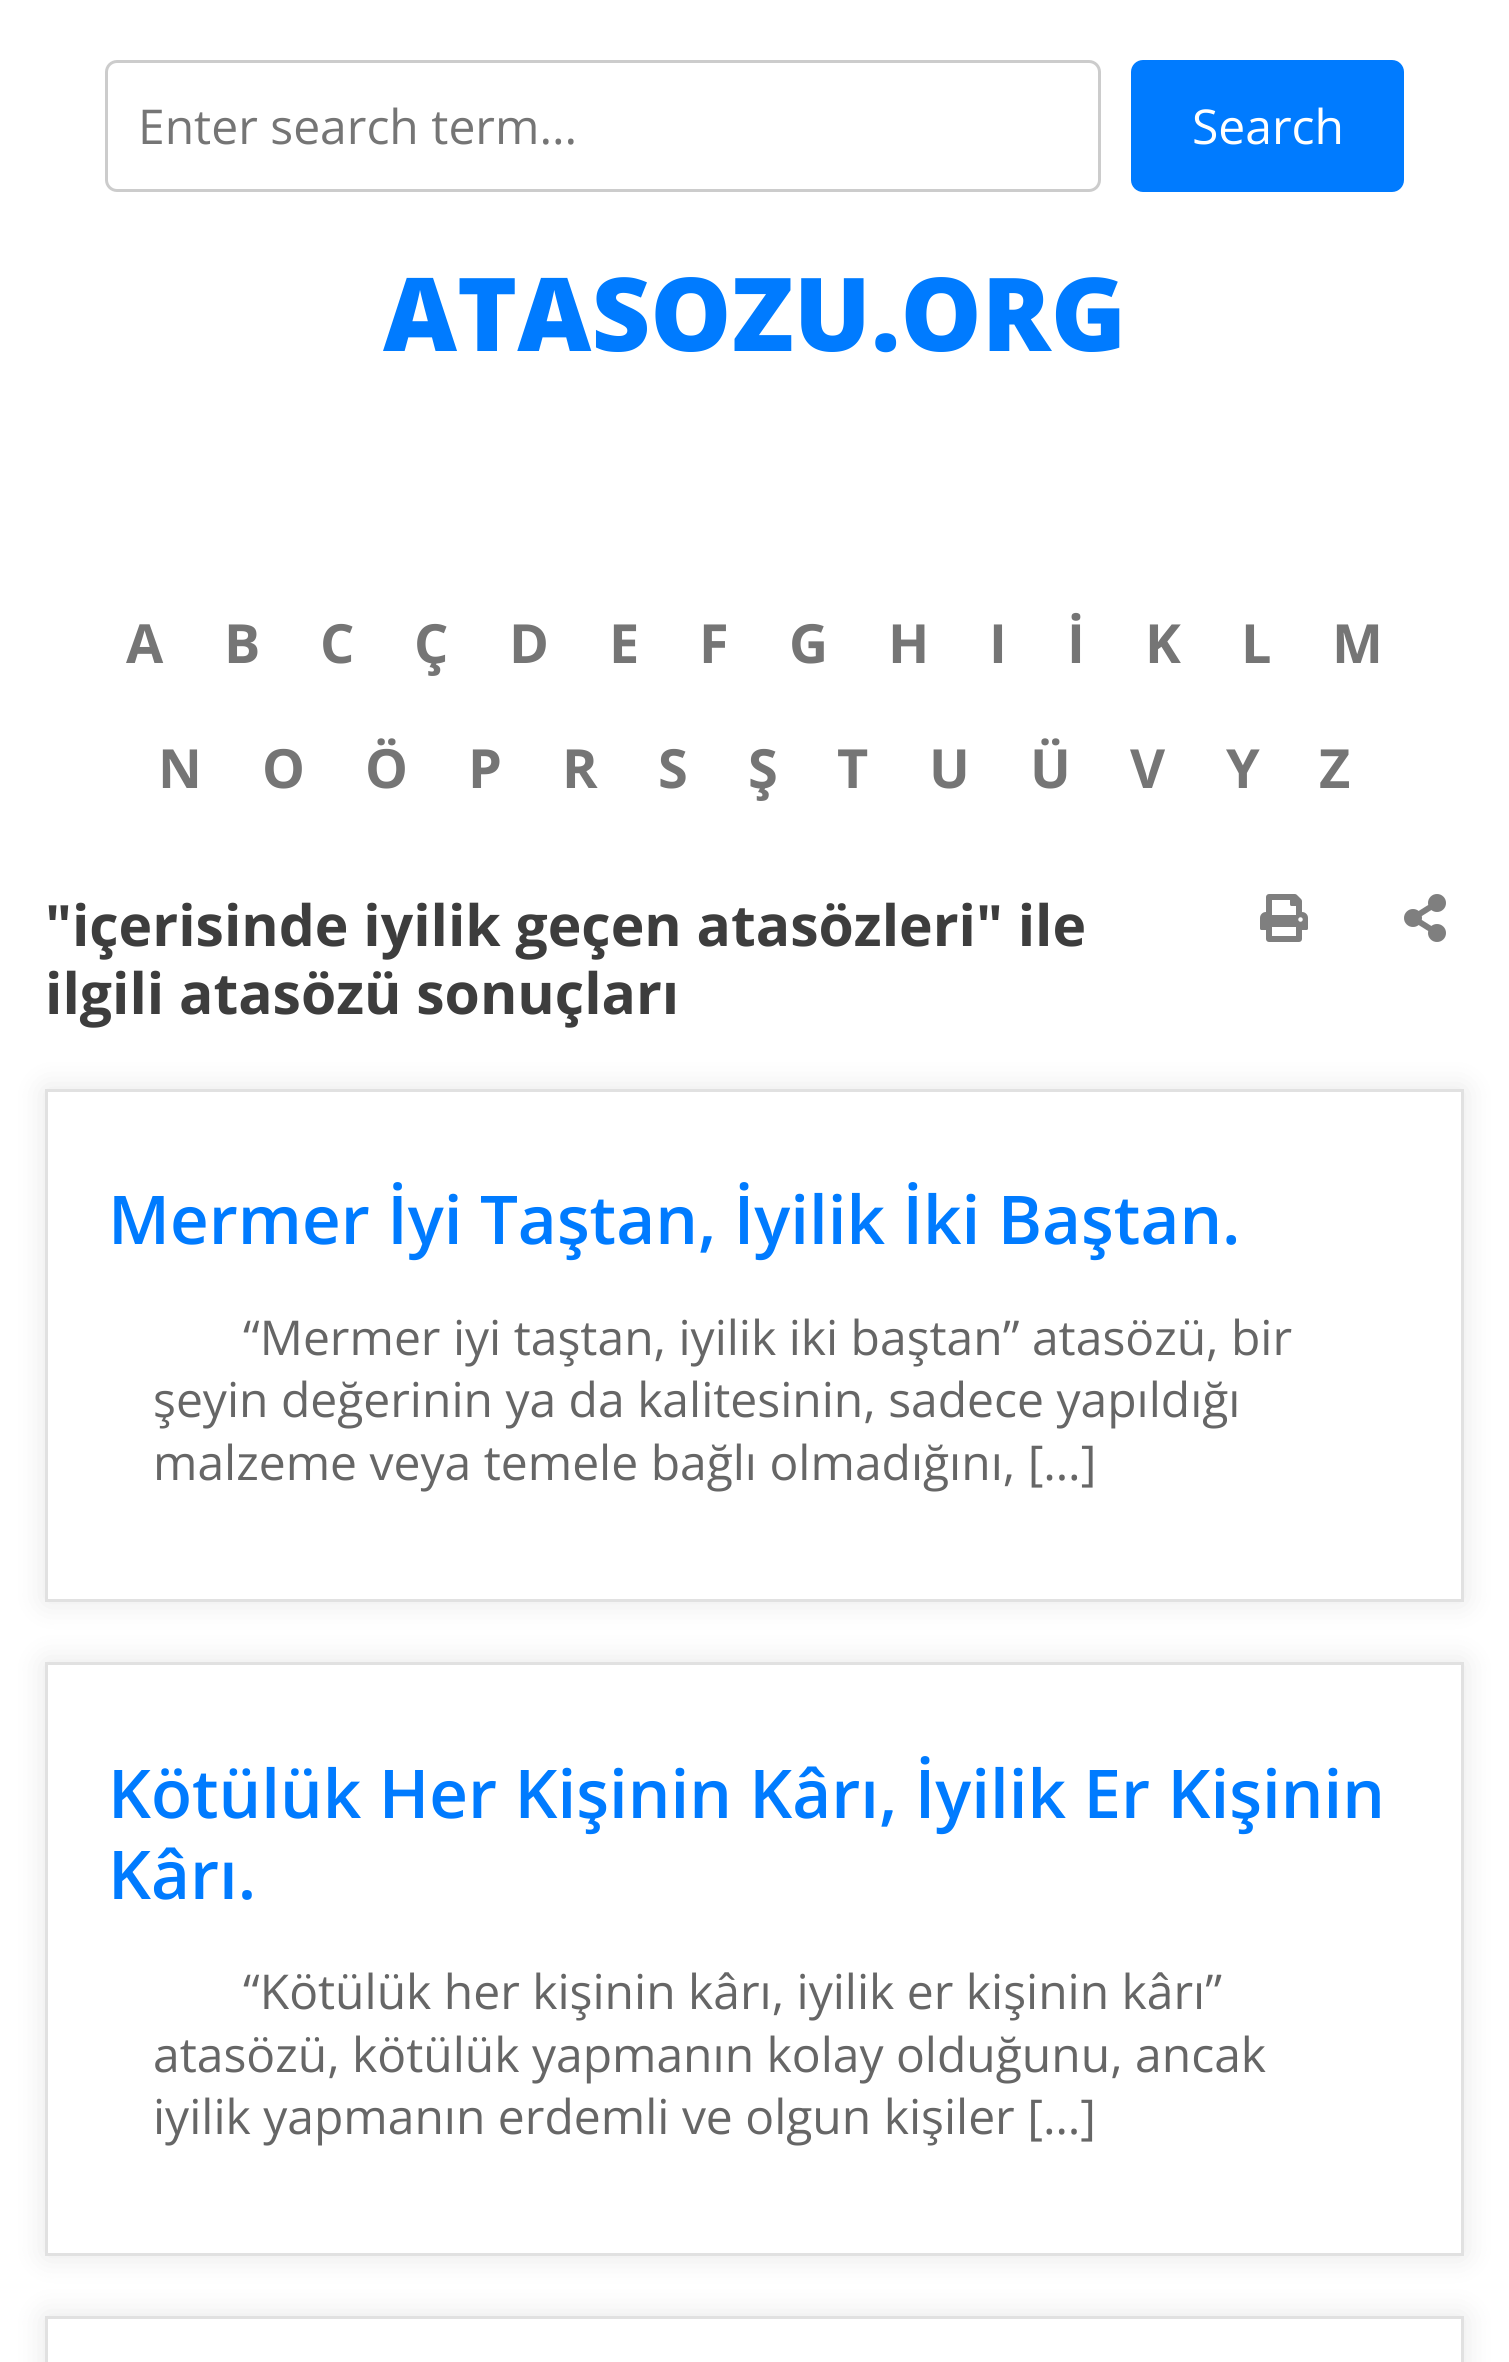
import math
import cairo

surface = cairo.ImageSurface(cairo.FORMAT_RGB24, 1509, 2362)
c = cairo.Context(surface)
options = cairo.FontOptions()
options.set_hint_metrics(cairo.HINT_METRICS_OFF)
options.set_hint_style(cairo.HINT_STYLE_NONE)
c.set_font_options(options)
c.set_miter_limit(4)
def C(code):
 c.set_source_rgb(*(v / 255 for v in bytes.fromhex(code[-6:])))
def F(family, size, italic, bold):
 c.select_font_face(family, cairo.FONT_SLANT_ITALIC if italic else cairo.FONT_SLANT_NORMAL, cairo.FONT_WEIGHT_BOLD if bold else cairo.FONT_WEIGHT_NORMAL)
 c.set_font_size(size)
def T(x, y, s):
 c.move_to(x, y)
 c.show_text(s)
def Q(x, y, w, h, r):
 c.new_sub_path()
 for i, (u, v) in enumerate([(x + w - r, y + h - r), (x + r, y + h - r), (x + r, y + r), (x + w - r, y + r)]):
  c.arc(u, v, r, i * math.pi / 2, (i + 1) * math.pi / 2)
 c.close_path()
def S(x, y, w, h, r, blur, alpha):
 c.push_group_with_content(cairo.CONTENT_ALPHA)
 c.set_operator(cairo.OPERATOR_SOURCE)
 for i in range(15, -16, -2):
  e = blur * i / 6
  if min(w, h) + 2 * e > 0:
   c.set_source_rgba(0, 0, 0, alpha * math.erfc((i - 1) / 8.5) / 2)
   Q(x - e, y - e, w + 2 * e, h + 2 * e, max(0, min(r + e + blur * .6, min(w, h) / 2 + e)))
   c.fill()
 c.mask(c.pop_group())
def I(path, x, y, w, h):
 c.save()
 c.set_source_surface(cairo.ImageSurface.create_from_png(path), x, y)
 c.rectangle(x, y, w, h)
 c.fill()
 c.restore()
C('ffffff')
c.paint()
Q(106.5,61.5,993,129,10.5)
C('cccccc')
c.set_line_width(3)
c.stroke()
F('Open Sans',48,0,0)
C('757575')
T(138,144,'Enter search term...')
C('007bff')
Q(1131,60,273,132,12)
c.fill()
C('ffffff')
T(1192,144,'Search')
F('Open Sans ExtraBold',102,0,0)
C('007bff')
T(383,351,'ATASOZU.ORG')
F('Open Sans',54,0,1)
C('757575')
T(126,663,'A')
T(224,663,'B')
T(320,663,'C')
T(414,663,'Ç')
T(509,663,'D')
T(609,663,'E')
T(699,663,'F')
T(789,663,'G')
T(888,663,'H')
T(989,663,'I')
T(1067,663,'İ')
T(1145,663,'K')
T(1241,663,'L')
T(1332,663,'M')
T(158,788,'N')
T(262,788,'O')
T(365,788,'Ö')
T(468,788,'P')
T(562,788,'R')
T(658,788,'S')
T(748,788,'Ş')
T(837,788,'T')
T(929,788,'U')
T(1030,788,'Ü')
T(1130,788,'V')
T(1226,788,'Y')
T(1319,788,'Z')
F('Open Sans',57,0,1)
C('3d3d3d')
T(45,946,'"içerisinde iyilik geçen atasözleri" ile')
T(45,1014,'ilgili atasözü sonuçları')
I('1.png',1260,894,48,48)
I('2.png',1404,894,42,48)
c.save()
c.set_fill_rule(cairo.FILL_RULE_EVEN_ODD)
c.new_path()
c.move_to(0,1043)
c.line_to(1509,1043)
c.line_to(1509,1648)
c.line_to(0,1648)
c.close_path()
c.move_to(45,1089)
c.line_to(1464,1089)
c.line_to(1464,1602)
c.line_to(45,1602)
c.close_path()
c.clip()
C('000000')
S(45,1089,1419,513,0,15,.1)
c.restore()
c.rectangle(46.5,1090.5,1416,510)
C('e1e1e1')
c.stroke()
F('Open Sans SemiBold',67.25,0,0)
C('007bff')
T(108,1244,'Mermer İyi Taştan, İyilik İki Baştan.')
F('Open Sans',48,0,0)
C('666666')
T(243,1355,'“Mermer iyi taştan, iyilik iki baştan” atasözü, bir')
T(153,1417,'şeyin değerinin ya da kalitesinin, sadece yapıldığı')
T(153,1480,'malzeme veya temele bağlı olmadığını, […]')
c.save()
c.set_fill_rule(cairo.FILL_RULE_EVEN_ODD)
c.new_path()
c.move_to(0,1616)
c.line_to(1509,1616)
c.line_to(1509,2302)
c.line_to(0,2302)
c.close_path()
c.move_to(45,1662)
c.line_to(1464,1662)
c.line_to(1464,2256)
c.line_to(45,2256)
c.close_path()
c.clip()
C('000000')
S(45,1662,1419,594,0,15,.1)
c.restore()
c.rectangle(46.5,1663.5,1416,591)
C('e1e1e1')
c.stroke()
F('Open Sans SemiBold',67.25,0,0)
C('007bff')
T(108,1818,'Kötülük Her Kişinin Kârı, İyilik Er Kişinin')
T(108,1899,'Kârı.')
F('Open Sans',48,0,0)
C('666666')
T(243,2009,'“Kötülük her kişinin kârı, iyilik er kişinin kârı”')
T(153,2072,'atasözü, kötülük yapmanın kolay olduğunu, ancak')
T(153,2134,'iyilik yapmanın erdemli ve olgun kişiler […]')
c.save()
c.set_fill_rule(cairo.FILL_RULE_EVEN_ODD)
c.new_path()
c.move_to(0,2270)
c.line_to(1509,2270)
c.line_to(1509,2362)
c.line_to(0,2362)
c.close_path()
c.move_to(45,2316)
c.line_to(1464,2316)
c.line_to(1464,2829)
c.line_to(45,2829)
c.close_path()
c.clip()
C('000000')
S(45,2316,1419,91,0,15,.1)
c.restore()
c.rectangle(46.5,2317.5,1416,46)
C('e1e1e1')
c.stroke()
surface.write_to_png('o.png')
